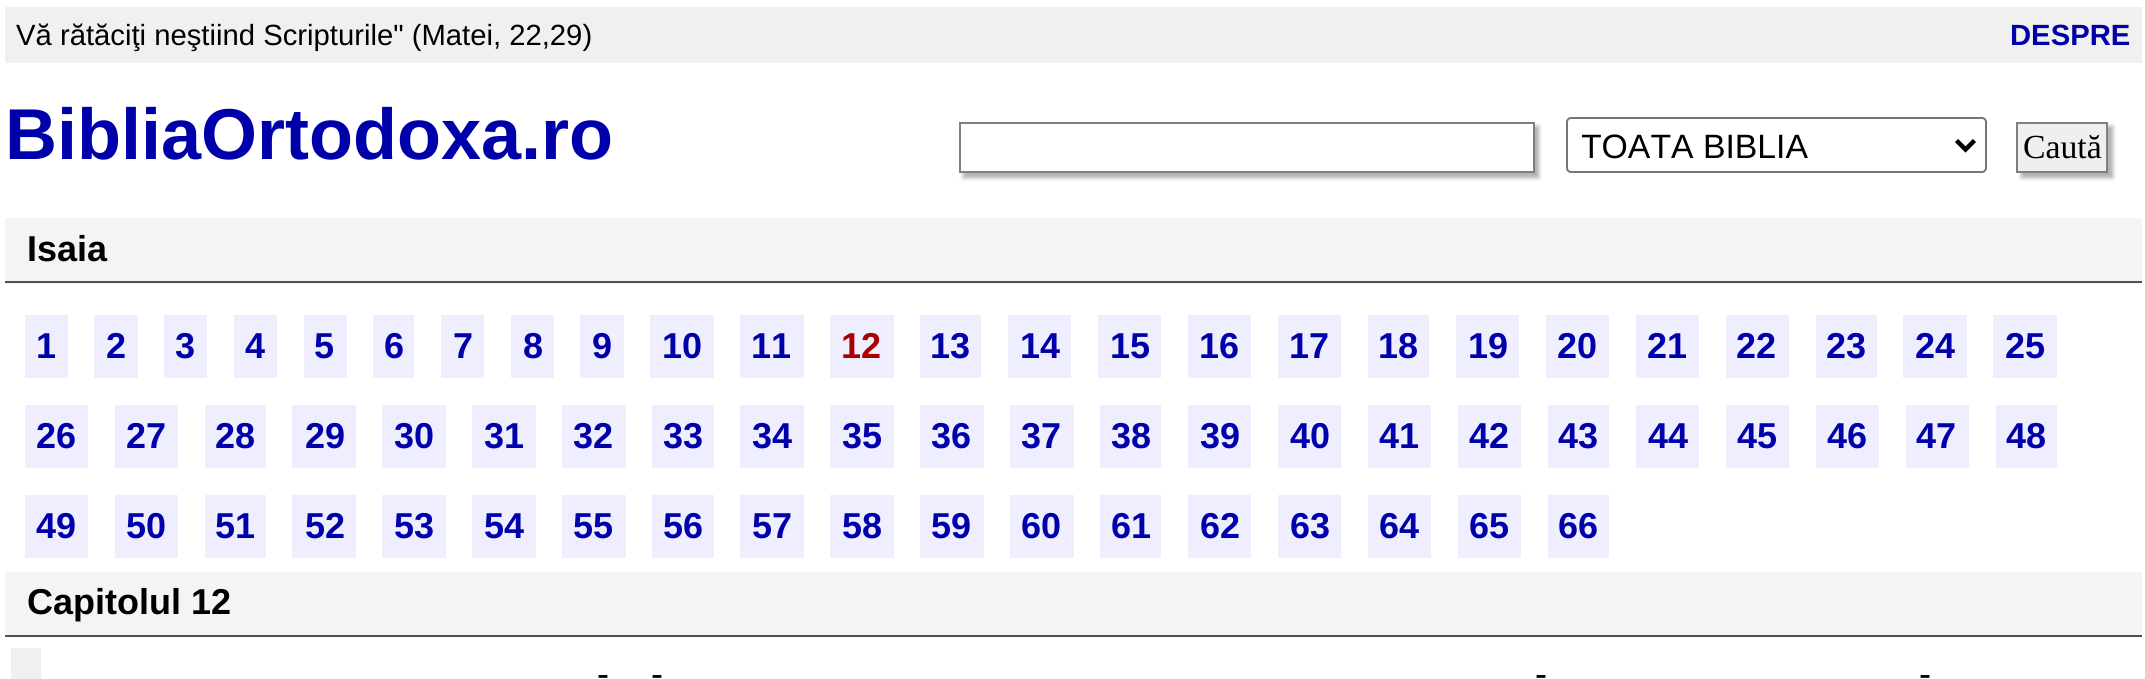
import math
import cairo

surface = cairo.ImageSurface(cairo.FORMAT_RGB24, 2145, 679)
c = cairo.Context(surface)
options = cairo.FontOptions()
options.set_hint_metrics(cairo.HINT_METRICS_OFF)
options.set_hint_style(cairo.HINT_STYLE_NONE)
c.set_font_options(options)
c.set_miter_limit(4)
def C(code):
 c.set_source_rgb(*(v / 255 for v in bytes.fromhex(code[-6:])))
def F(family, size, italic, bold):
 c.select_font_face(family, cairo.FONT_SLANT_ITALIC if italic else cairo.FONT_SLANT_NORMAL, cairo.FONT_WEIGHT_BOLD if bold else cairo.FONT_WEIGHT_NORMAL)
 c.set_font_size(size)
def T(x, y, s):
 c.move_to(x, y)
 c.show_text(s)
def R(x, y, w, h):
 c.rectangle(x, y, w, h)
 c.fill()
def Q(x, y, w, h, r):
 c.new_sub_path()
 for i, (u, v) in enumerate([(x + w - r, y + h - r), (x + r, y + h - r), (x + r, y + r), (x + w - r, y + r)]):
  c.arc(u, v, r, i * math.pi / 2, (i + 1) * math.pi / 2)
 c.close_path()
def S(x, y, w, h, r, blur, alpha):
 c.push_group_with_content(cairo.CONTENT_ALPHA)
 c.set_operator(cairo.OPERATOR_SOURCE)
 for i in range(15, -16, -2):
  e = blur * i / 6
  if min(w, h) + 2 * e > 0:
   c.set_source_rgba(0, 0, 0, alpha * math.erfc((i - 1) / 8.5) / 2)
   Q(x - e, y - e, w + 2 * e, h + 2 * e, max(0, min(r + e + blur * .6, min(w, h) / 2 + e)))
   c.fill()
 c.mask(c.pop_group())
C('ffffff')
c.paint()
C('f0f0f0')
R(5,7,2137,56)
F('Liberation Sans',29.25,0,0)
C('000000')
T(16,45,'Vă rătăciţi neştiind Scripturile" (Matei, 22,29)')
F('Liberation Sans',29.25,0,1)
C('0000aa')
T(2010,45,'DESPRE')
F('Liberation Sans',72,0,1)
T(5,159,'BibliaOrtodoxa.ro')
C('b0b0b0')
S(963,126,576,52,0,2,1)
C('ffffff')
c.rectangle(960,123,574,49)
c.fill_preserve()
C('808080')
c.stroke()
Q(1567,118,419,54,4)
C('767676')
c.stroke()
c.new_path()
c.move_to(1956.5,140.5)
c.line_to(1965.5,149.5)
c.line_to(1974.5,140.5)
C('000000')
c.set_line_width(4.5)
c.stroke()
c.save()
c.rectangle(1582,124,362,43)
c.clip()
F('Liberation Sans',33.75,0,0)
T(1581,158,'TOATA BIBLIA')
c.restore()
C('b0b0b0')
S(2021,126,92,52,0,2,1)
C('efefef')
c.rectangle(2017,123,90,49)
c.fill_preserve()
C('808080')
c.set_line_width(2)
c.stroke()
F('Liberation Serif',33.75,0,0)
C('000000')
T(2023,158,'Caută')
C('f3f4f3')
R(5,218,2137,66)
C('505050')
R(5,281,2137,2)
F('Liberation Sans',36,0,1)
C('000000')
T(27,261,'Isaia')
C('eeeeff')
R(25,315,43,63)
C('0000aa')
T(36,358,'1')
C('eeeeff')
R(94,315,44,63)
C('0000aa')
T(106,358,'2')
C('eeeeff')
R(164,315,43,63)
C('0000aa')
T(175,358,'3')
C('eeeeff')
R(234,315,43,63)
C('0000aa')
T(245,358,'4')
C('eeeeff')
R(304,315,43,63)
C('0000aa')
T(314,358,'5')
C('eeeeff')
R(373,315,41,63)
C('0000aa')
T(384,358,'6')
C('eeeeff')
R(441,315,43,63)
C('0000aa')
T(453,358,'7')
C('eeeeff')
R(511,315,43,63)
C('0000aa')
T(523,358,'8')
C('eeeeff')
R(580,315,44,63)
C('0000aa')
T(592,358,'9')
C('eeeeff')
R(650,315,64,63)
C('0000aa')
T(662,358,'10')
C('eeeeff')
R(740,315,64,63)
C('0000aa')
T(751,358,'11')
C('eeeeff')
R(830,315,64,63)
C('aa0000')
T(841,358,'12')
C('eeeeff')
R(920,315,61,63)
C('0000aa')
T(930,358,'13')
C('eeeeff')
R(1008,315,63,63)
C('0000aa')
T(1020,358,'14')
C('eeeeff')
R(1098,315,63,63)
C('0000aa')
T(1110,358,'15')
C('eeeeff')
R(1188,315,63,63)
C('0000aa')
T(1199,358,'16')
C('eeeeff')
R(1278,315,63,63)
C('0000aa')
T(1289,358,'17')
C('eeeeff')
R(1368,315,61,63)
C('0000aa')
T(1378,358,'18')
C('eeeeff')
R(1456,315,63,63)
C('0000aa')
T(1468,358,'19')
C('eeeeff')
R(1546,315,63,63)
C('0000aa')
T(1557,358,'20')
C('eeeeff')
R(1636,315,63,63)
C('0000aa')
T(1647,358,'21')
C('eeeeff')
R(1726,315,63,63)
C('0000aa')
T(1736,358,'22')
C('eeeeff')
R(1816,315,61,63)
C('0000aa')
T(1826,358,'23')
C('eeeeff')
R(1903,315,64,63)
C('0000aa')
T(1915,358,'24')
C('eeeeff')
R(1993,315,64,63)
C('0000aa')
T(2005,358,'25')
C('eeeeff')
R(25,405,63,63)
C('0000aa')
T(36,448,'26')
C('eeeeff')
R(115,405,63,63)
C('0000aa')
T(126,448,'27')
C('eeeeff')
R(205,405,61,63)
C('0000aa')
T(215,448,'28')
C('eeeeff')
R(292,405,64,63)
C('0000aa')
T(305,448,'29')
C('eeeeff')
R(382,405,64,63)
C('0000aa')
T(394,448,'30')
C('eeeeff')
R(472,405,64,63)
C('0000aa')
T(484,448,'31')
C('eeeeff')
R(562,405,64,63)
C('0000aa')
T(573,448,'32')
C('eeeeff')
R(652,405,62,63)
C('0000aa')
T(663,448,'33')
C('eeeeff')
R(740,405,64,63)
C('0000aa')
T(752,448,'34')
C('eeeeff')
R(830,405,64,63)
C('0000aa')
T(842,448,'35')
C('eeeeff')
R(920,405,64,63)
C('0000aa')
T(931,448,'36')
C('eeeeff')
R(1010,405,64,63)
C('0000aa')
T(1021,448,'37')
C('eeeeff')
R(1100,405,61,63)
C('0000aa')
T(1111,448,'38')
C('eeeeff')
R(1188,405,63,63)
C('0000aa')
T(1200,448,'39')
C('eeeeff')
R(1278,405,63,63)
C('0000aa')
T(1290,448,'40')
C('eeeeff')
R(1368,405,63,63)
C('0000aa')
T(1379,448,'41')
C('eeeeff')
R(1458,405,63,63)
C('0000aa')
T(1469,448,'42')
C('eeeeff')
R(1548,405,61,63)
C('0000aa')
T(1558,448,'43')
C('eeeeff')
R(1636,405,63,63)
C('0000aa')
T(1648,448,'44')
C('eeeeff')
R(1726,405,63,63)
C('0000aa')
T(1737,448,'45')
C('eeeeff')
R(1816,405,63,63)
C('0000aa')
T(1827,448,'46')
C('eeeeff')
R(1906,405,63,63)
C('0000aa')
T(1916,448,'47')
C('eeeeff')
R(1996,405,61,63)
C('0000aa')
T(2006,448,'48')
C('eeeeff')
R(25,495,63,63)
C('0000aa')
T(36,538,'49')
C('eeeeff')
R(115,495,63,63)
C('0000aa')
T(126,538,'50')
C('eeeeff')
R(205,495,61,63)
C('0000aa')
T(215,538,'51')
C('eeeeff')
R(292,495,64,63)
C('0000aa')
T(305,538,'52')
C('eeeeff')
R(382,495,64,63)
C('0000aa')
T(394,538,'53')
C('eeeeff')
R(472,495,64,63)
C('0000aa')
T(484,538,'54')
C('eeeeff')
R(562,495,64,63)
C('0000aa')
T(573,538,'55')
C('eeeeff')
R(652,495,62,63)
C('0000aa')
T(663,538,'56')
C('eeeeff')
R(740,495,64,63)
C('0000aa')
T(752,538,'57')
C('eeeeff')
R(830,495,64,63)
C('0000aa')
T(842,538,'58')
C('eeeeff')
R(920,495,64,63)
C('0000aa')
T(931,538,'59')
C('eeeeff')
R(1010,495,64,63)
C('0000aa')
T(1021,538,'60')
C('eeeeff')
R(1100,495,61,63)
C('0000aa')
T(1111,538,'61')
C('eeeeff')
R(1188,495,63,63)
C('0000aa')
T(1200,538,'62')
C('eeeeff')
R(1278,495,63,63)
C('0000aa')
T(1290,538,'63')
C('eeeeff')
R(1368,495,63,63)
C('0000aa')
T(1379,538,'64')
C('eeeeff')
R(1458,495,63,63)
C('0000aa')
T(1469,538,'65')
C('eeeeff')
R(1548,495,61,63)
C('0000aa')
T(1558,538,'66')
C('f3f4f3')
R(5,572,2137,63)
C('505050')
R(5,635,2137,2)
C('000000')
T(27,614,'Capitolul 12')
C('f0f0f0')
R(11,648,30,31)
F('Liberation Sans',36,0,0)
C('000000')
T(597,686,'-')
T(651,686,'-')
T(1535,686,'-')
T(1919,686,'-')
surface.write_to_png('o.png')
